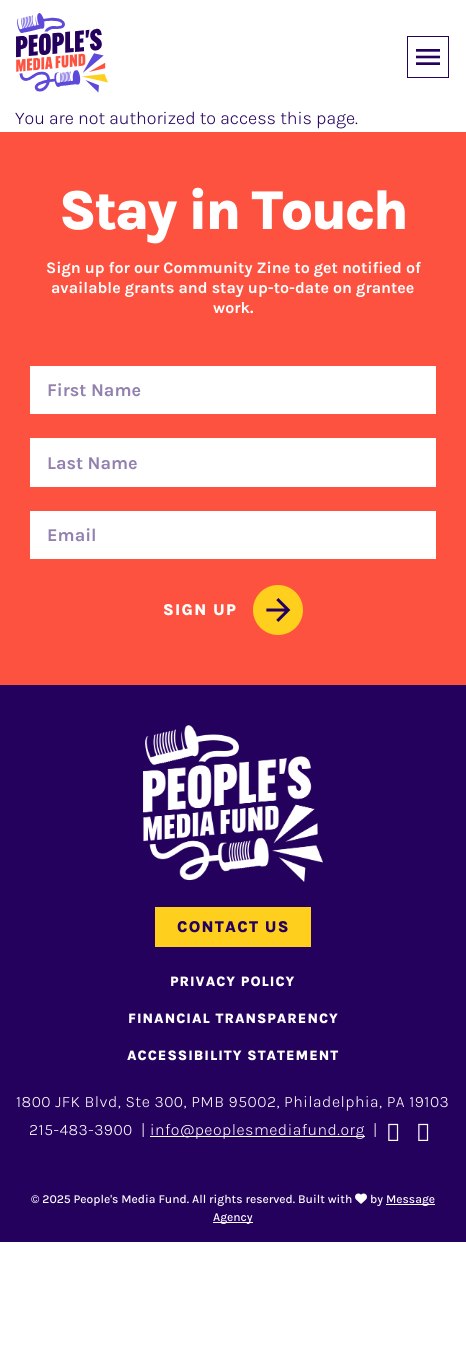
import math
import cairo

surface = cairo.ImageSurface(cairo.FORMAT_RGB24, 466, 1347)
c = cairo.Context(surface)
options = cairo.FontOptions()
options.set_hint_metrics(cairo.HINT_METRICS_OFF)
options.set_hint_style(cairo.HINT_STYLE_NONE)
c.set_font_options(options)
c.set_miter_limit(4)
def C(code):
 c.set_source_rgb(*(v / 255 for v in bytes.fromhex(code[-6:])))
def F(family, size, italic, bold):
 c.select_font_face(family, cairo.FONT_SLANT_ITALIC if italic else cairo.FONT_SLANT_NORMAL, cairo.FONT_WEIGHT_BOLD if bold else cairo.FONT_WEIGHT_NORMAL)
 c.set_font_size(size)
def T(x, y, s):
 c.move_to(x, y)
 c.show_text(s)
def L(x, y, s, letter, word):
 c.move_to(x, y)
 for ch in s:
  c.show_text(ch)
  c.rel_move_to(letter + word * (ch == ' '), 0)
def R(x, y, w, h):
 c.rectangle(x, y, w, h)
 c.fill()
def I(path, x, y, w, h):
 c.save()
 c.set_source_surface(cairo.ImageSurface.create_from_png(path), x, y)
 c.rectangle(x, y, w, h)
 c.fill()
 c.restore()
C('ffffff')
c.paint()
I('1.png',16,13,92,80)
c.rectangle(407.5,36.5,41,41)
C('25015e')
c.set_line_width(1)
c.stroke()
I('2.png',416,49,24,16)
F('Karla Light',18,0,0)
T(15,124,'You are not authorized to access this page.')
C('fd5240')
R(0,132,466,553)
F('Karla ExtraBold',56,0,0)
C('ffffff')
L(59,229,'Stay in Touch',-2.5,0)
F('Karla',16,0,1)
T(46,273,'Sign up for our Community Zine to get notified of')
T(51,293,'available grants and stay up-to-date on grantee')
T(213,313,'work.')
c.rectangle(30.5,366.5,405,47)
c.fill_preserve()
c.stroke()
F('Karla',18,0,1)
C('9280af')
T(47,396,'First Name')
C('ffffff')
c.rectangle(30.5,438.5,405,48)
c.fill_preserve()
c.stroke()
C('9280af')
T(47,469,'Last Name')
C('ffffff')
c.rectangle(30.5,511.5,405,47)
c.fill_preserve()
c.stroke()
C('9280af')
T(47,541,'Email')
F('Karla ExtraBold',16,0,0)
C('ffffff')
L(163,615,'SIGN UP',1.25,0)
C('fed01d')
c.new_path()
c.arc(278,610,25,0,2 * math.pi)
c.fill()
I('3.png',266,598,25,24)
C('25015e')
R(0,685,466,557)
I('4.png',143,725,180,157)
C('fed01d')
R(155,907,156,40)
C('25015e')
L(177,932,'CONTACT US',1.25,0)
F('Karla ExtraBold',14,0,0)
C('ffffff')
L(170,986,'PRIVACY POLICY',1,0)
L(128,1023,'FINANCIAL TRANSPARENCY',1,0)
L(127,1060,'ACCESSIBILITY STATEMENT',1,0)
F('Karla Light',16,0,0)
L(16,1107,'1800 JFK Blvd, Ste 300, PMB 95002, Philadelphia, PA 19103',.5,0)
L(29,1135,'215-483-3900  |',.5,0)
R(150,1136,215,1)
L(150,1135,'info@peoplesmediafund.org',.5,0)
L(373,1135,'|',.5,0)
I('5.png',388,1123,11,18)
I('5.png',418,1123,11,18)
F('Karla Medium',12,0,0)
T(31,1203,'© 2025 People\'s Media Fund. All rights reserved. Built with')
I('6.png',355,1193,12,11)
T(370,1203,'by')
R(386,1204,49,1)
T(386,1203,'Message')
R(213,1222,40,1)
T(213,1221,'Agency')
surface.write_to_png('o.png')
